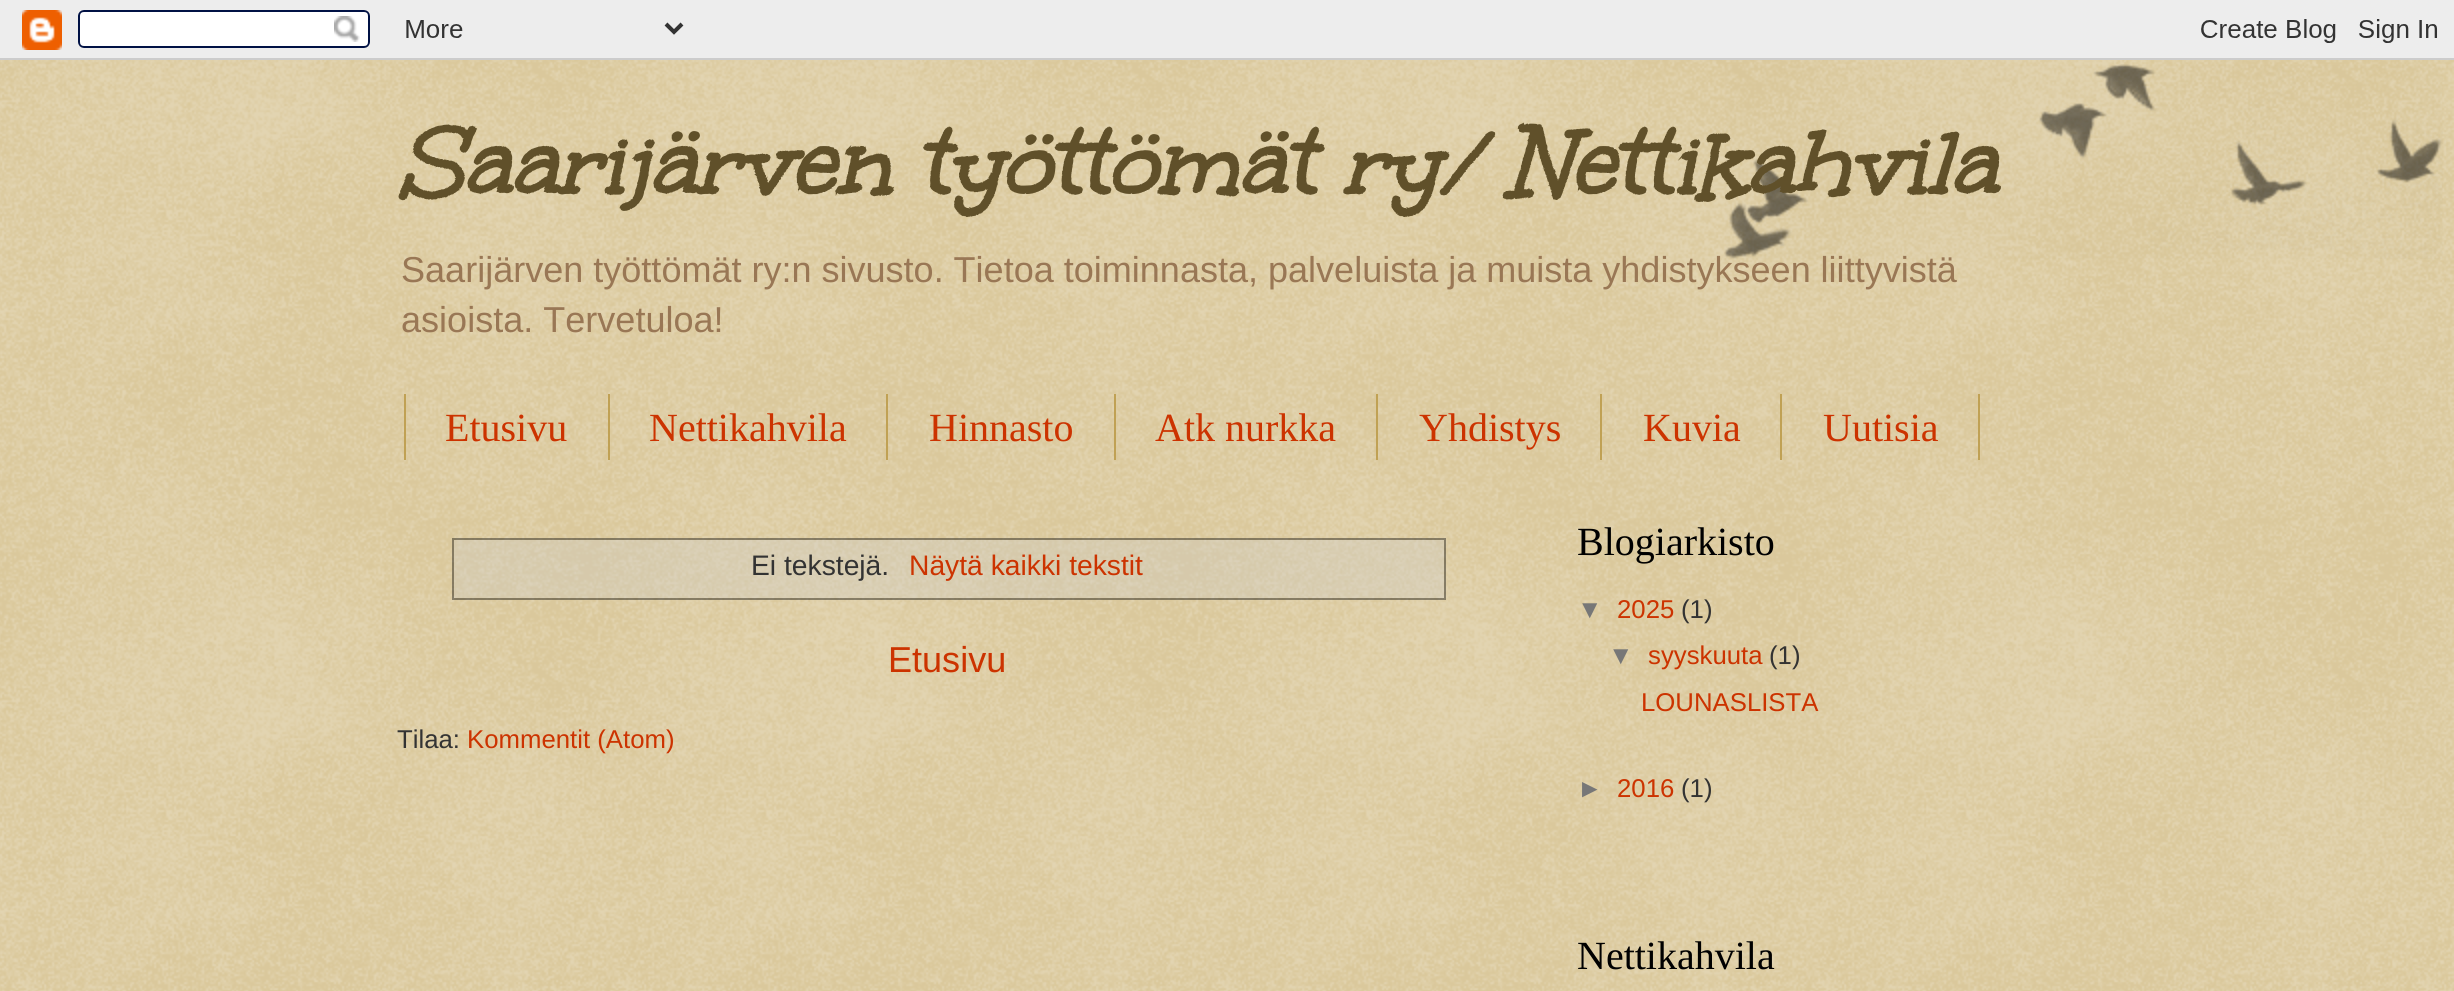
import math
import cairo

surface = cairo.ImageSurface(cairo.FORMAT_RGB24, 2454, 991)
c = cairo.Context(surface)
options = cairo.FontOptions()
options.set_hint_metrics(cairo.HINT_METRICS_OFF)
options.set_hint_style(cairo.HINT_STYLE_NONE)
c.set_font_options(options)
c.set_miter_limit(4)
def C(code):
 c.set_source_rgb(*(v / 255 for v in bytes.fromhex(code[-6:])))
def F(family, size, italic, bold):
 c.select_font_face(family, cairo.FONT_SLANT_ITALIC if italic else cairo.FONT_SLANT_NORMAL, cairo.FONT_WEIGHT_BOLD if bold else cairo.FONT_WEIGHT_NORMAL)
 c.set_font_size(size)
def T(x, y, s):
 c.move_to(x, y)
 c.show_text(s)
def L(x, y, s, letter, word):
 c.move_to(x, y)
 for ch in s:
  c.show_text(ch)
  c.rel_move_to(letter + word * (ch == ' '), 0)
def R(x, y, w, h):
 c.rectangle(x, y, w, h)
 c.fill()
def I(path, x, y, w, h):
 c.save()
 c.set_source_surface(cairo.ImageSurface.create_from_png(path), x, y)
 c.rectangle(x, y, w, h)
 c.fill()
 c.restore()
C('c0a154')
c.paint()
I('1.png',0,60,2454,931)
I('2.png',0,0,2454,60)
I('3.png',1724,64,719,195)
F('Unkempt',100,1,1)
C('60502a')
T(397,200,'Saarijärven työttömät ry/ Nettikahvila')
F('Liberation Sans',36.05,0,0)
C('997755')
L(401,282,'Saarijärven työttömät ry:n sivusto. Tietoa toiminnasta, palveluista ja muista yhdistykseen liittyvistä',0,-.1)
T(401,332,'asioista. Tervetuloa!')
C('c0a154')
R(608,394,2,66)
R(404,394,2,66)
F('Liberation Serif',40,0,0)
C('cc3300')
T(445,441,'Etusivu')
C('c0a154')
R(886,394,2,66)
C('cc3300')
T(649,441,'Nettikahvila')
C('c0a154')
R(1114,394,2,66)
C('cc3300')
T(929,441,'Hinnasto')
C('c0a154')
R(1376,394,2,66)
C('cc3300')
T(1155,441,'Atk nurkka')
C('c0a154')
R(1600,394,2,66)
C('cc3300')
T(1419,441,'Yhdistys')
C('c0a154')
R(1780,394,2,66)
C('cc3300')
T(1643,441,'Kuvia')
C('c0a154')
R(1978,394,2,66)
C('cc3300')
T(1823,441,'Uutisia')
c.rectangle(453,539,992,60)
c.set_source_rgba(0,0,0,0.4)
c.stroke()
c.set_source_rgba(0.8,0.8,0.8,0.32)
R(454,540,990,58)
F('Liberation Sans',28.25,0,0)
C('333333')
T(751,575,'Ei tekstejä.')
C('cc3300')
T(909,575,'Näytä kaikki tekstit')
F('Liberation Sans',36.05,0,0)
T(888,672,'Etusivu')
F('Liberation Sans',25.75,0,0)
C('333333')
T(397,748,'Tilaa:')
C('cc3300')
T(467,748,'Kommentit (Atom)')
F('Liberation Serif',40,0,0)
C('000000')
T(1577,555,'Blogiarkisto')
F('Liberation Sans',25.75,0,0)
C('777777')
T(1577,618,'▼')
C('cc3300')
T(1617,618,'2025')
C('333333')
T(1681,618,'(1)')
C('777777')
T(1608,664,'▼')
C('cc3300')
T(1648,664,'syyskuuta')
C('333333')
T(1769,664,'(1)')
C('cc3300')
T(1641,711,'LOUNASLISTA')
C('777777')
T(1577,797,'►')
C('cc3300')
T(1617,797,'2016')
C('333333')
T(1681,797,'(1)')
F('Liberation Serif',40,0,0)
C('000000')
T(1577,969,'Nettikahvila')
surface.write_to_png('o.png')
